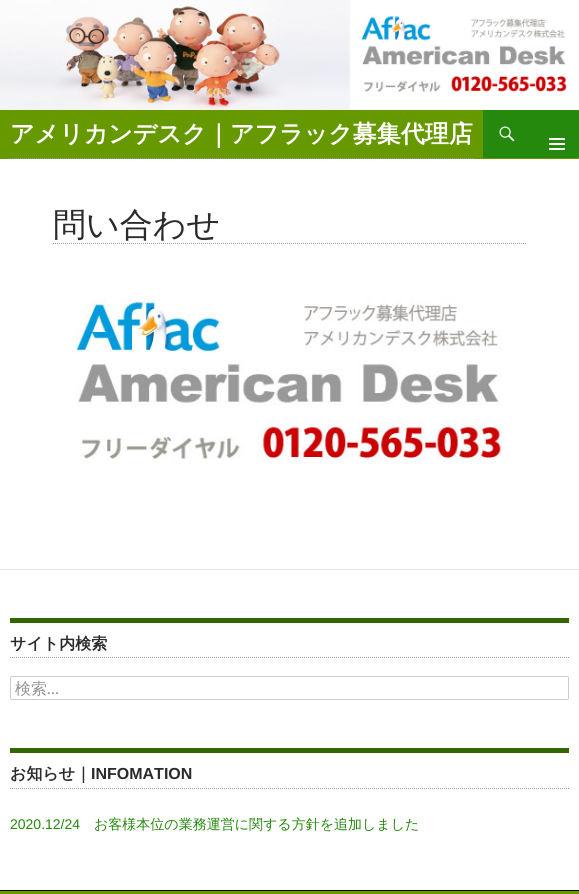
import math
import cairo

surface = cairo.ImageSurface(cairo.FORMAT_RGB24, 579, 894)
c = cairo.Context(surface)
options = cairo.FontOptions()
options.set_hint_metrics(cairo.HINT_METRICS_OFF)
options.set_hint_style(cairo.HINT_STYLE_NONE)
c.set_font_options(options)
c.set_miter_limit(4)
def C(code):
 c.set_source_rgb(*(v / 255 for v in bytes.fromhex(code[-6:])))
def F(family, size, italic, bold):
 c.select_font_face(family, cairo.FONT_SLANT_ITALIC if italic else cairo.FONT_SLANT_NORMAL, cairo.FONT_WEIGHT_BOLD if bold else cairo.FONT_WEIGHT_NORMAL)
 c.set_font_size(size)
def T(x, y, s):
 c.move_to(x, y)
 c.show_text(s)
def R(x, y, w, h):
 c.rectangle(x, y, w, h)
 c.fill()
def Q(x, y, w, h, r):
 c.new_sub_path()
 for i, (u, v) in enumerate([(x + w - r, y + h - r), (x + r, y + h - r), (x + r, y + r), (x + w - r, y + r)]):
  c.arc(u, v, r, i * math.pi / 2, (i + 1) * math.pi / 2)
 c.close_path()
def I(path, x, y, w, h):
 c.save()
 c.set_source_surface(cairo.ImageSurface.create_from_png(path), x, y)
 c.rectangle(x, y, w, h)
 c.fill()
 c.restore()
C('ffffff')
c.paint()
I('1.png',0,0,567,110)
C('669900')
R(0,110,579,49)
c.new_path()
c.move_to(10,158.5)
c.line_to(473,158.5)
C('999999')
c.set_line_width(1)
c.set_dash([1,1])
c.stroke()
F('WenQuanYi Zen Hei',24,0,1)
C('ffffff')
T(10,142,'アメリカンデスク｜アフラック募集代理店')
C('24890d')
R(483,110,38,48)
I('2.png',499,126,16,16)
Q(519,110,60,48,2)
c.fill()
I('3.png',549,138,16,12)
c.new_path()
c.move_to(53,243.5)
c.line_to(527,243.5)
C('999999')
c.stroke()
F('WenQuanYi Zen Hei Medium',33,0,0)
C('2b2b2b')
T(53,236,'問い合わせ')
I('4.png',76,298,427,161)
C('e6e6e6')
R(0,569,579,1)
C('336600')
R(10,618,559,5)
c.new_path()
c.move_to(10,657.5)
c.line_to(569,657.5)
C('999999')
c.stroke()
F('WenQuanYi Zen Hei',16,0,1)
C('2b2b2b')
T(10,649,'サイト内検索')
Q(10.5,676.5,558,23,1.5)
C('cccccc')
c.set_dash([])
c.stroke()
F('WenQuanYi Zen Hei Medium',16,0,0)
C('939393')
T(15,694,'検索')
F('Lato',16,0,0)
T(47,694,'…')
C('336600')
R(10,748,559,5)
c.new_path()
c.move_to(10,788.5)
c.line_to(569,788.5)
C('999999')
c.set_dash([1,1])
c.stroke()
F('WenQuanYi Zen Hei',16,0,1)
C('2b2b2b')
T(10,779,'お知らせ｜')
F('Liberation Sans',16,0,1)
T(91,779,'INFOMATION')
F('Liberation Sans',14,0,0)
C('24890d')
T(10,829,'2020.12/24')
F('WenQuanYi Zen Hei Medium',14,0,0)
T(94,829,'お客様本位の業務運営に関する方針を追加しました')
C('669900')
R(0,891,579,3)
C('000000')
R(0,890,579,1)
surface.write_to_png('o.png')
